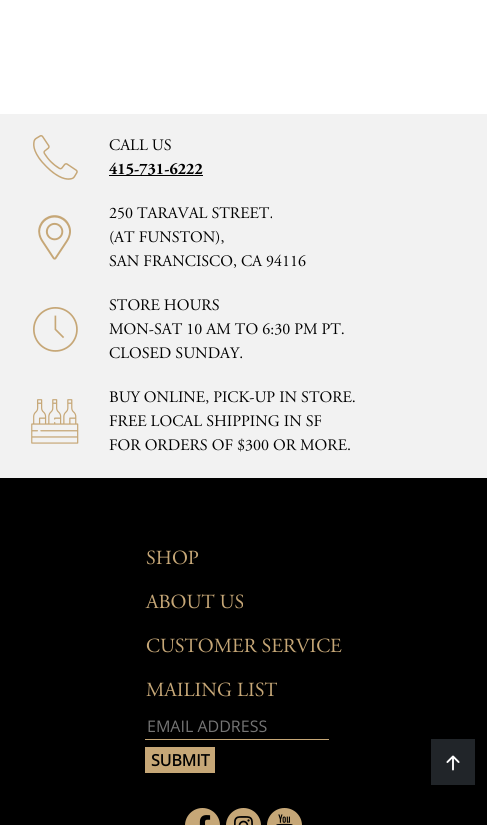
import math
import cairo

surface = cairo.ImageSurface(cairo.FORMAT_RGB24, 487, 825)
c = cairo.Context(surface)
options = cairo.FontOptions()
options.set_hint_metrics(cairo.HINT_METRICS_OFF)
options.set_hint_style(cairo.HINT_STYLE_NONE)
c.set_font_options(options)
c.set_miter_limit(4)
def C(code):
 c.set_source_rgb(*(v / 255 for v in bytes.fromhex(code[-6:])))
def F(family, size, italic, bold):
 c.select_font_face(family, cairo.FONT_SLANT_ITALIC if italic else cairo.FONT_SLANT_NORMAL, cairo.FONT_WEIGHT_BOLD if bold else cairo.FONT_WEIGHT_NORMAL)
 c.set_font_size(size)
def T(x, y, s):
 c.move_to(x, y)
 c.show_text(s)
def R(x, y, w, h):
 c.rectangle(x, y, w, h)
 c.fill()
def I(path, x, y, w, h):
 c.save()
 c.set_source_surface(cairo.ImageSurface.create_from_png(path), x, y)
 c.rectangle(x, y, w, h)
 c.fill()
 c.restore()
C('ffffff')
c.paint()
C('f2f2f2')
R(0,114,487,364)
I('1.png',33,135,45,45)
F('Adobe Garamond',16,0,0)
C('000000')
T(109,150,'CALL US')
R(109,175,94,1)
F('Adobe Garamond',16,0,1)
T(109,174,'415-731-6222')
I('2.png',38,215,33,45)
F('Adobe Garamond',16,0,0)
T(109,218,'250 TARAVAL STREET.')
T(109,242,'(AT FUNSTON),')
T(109,266,'SAN FRANCISCO, CA 94116')
I('3.png',33,307,45,45)
T(109,310,'STORE HOURS')
T(109,334,'MON-SAT 10 AM TO 6:30 PM PT.')
T(109,358,'CLOSED SUNDAY.')
I('4.png',31,399,48,45)
T(109,402,'BUY ONLINE, PICK-UP IN STORE.')
T(109,426,'FREE LOCAL SHIPPING IN SF')
T(109,450,'FOR ORDERS OF $300 OR MORE.')
R(0,478,487,347)
F('Adobe Garamond',20,0,0)
C('c6a777')
T(146,564,'SHOP')
T(146,608,'ABOUT US')
T(146,652,'CUSTOMER SERVICE')
T(146,696,'MAILING LIST')
R(145,739,184,1)
F('Open Sans',16,0,0)
C('757575')
T(147,732,'EMAIL ADDRESS')
C('c6a777')
R(145,747,70,26)
F('Open Sans',16,0,1)
C('000000')
T(151,766,'SUBMIT')
C('c6a777')
c.new_path()
c.arc(202.5,825.5,17.5,0,2 * math.pi)
c.fill()
I('5.png',199,815,12,10)
c.arc(243.5,825.5,17.5,0,2 * math.pi)
c.fill()
I('6.png',234,816,19,9)
c.arc(284.5,825.5,17.5,0,2 * math.pi)
c.fill()
I('7.png',276,814,17,11)
C('212529')
R(431,739,44,46)
I('8.png',446,755,14,16)
surface.write_to_png('o.png')
